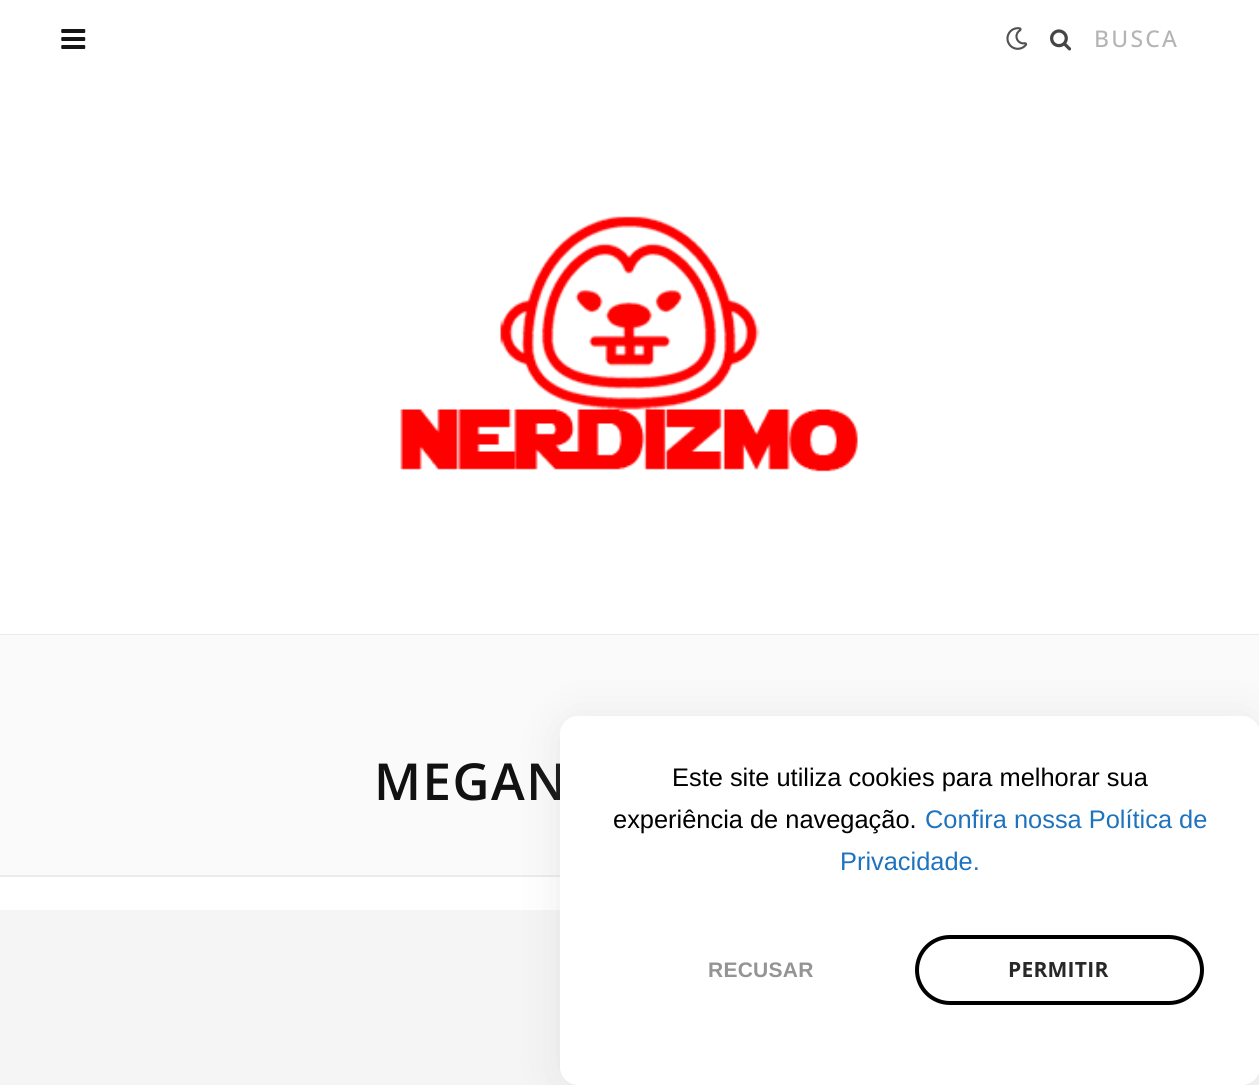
import math
import cairo

surface = cairo.ImageSurface(cairo.FORMAT_RGB24, 1259, 1085)
c = cairo.Context(surface)
options = cairo.FontOptions()
options.set_hint_metrics(cairo.HINT_METRICS_OFF)
options.set_hint_style(cairo.HINT_STYLE_NONE)
c.set_font_options(options)
c.set_miter_limit(4)
def C(code):
 c.set_source_rgb(*(v / 255 for v in bytes.fromhex(code[-6:])))
def F(family, size, italic, bold):
 c.select_font_face(family, cairo.FONT_SLANT_ITALIC if italic else cairo.FONT_SLANT_NORMAL, cairo.FONT_WEIGHT_BOLD if bold else cairo.FONT_WEIGHT_NORMAL)
 c.set_font_size(size)
def T(x, y, s):
 c.move_to(x, y)
 c.show_text(s)
def L(x, y, s, letter, word):
 c.move_to(x, y)
 for ch in s:
  c.show_text(ch)
  c.rel_move_to(letter + word * (ch == ' '), 0)
def R(x, y, w, h):
 c.rectangle(x, y, w, h)
 c.fill()
def Q(x, y, w, h, r):
 c.new_sub_path()
 for i, (u, v) in enumerate([(x + w - r, y + h - r), (x + r, y + h - r), (x + r, y + r), (x + w - r, y + r)]):
  c.arc(u, v, r, i * math.pi / 2, (i + 1) * math.pi / 2)
 c.close_path()
def S(x, y, w, h, r, blur, alpha):
 c.push_group_with_content(cairo.CONTENT_ALPHA)
 c.set_operator(cairo.OPERATOR_SOURCE)
 for i in range(15, -16, -2):
  e = blur * i / 6
  if min(w, h) + 2 * e > 0:
   c.set_source_rgba(0, 0, 0, alpha * math.erfc((i - 1) / 8.5) / 2)
   Q(x - e, y - e, w + 2 * e, h + 2 * e, max(0, min(r + e + blur * .6, min(w, h) / 2 + e)))
   c.fill()
 c.mask(c.pop_group())
def I(path, x, y, w, h):
 c.save()
 c.set_source_surface(cairo.ImageSurface.create_from_png(path), x, y)
 c.rectangle(x, y, w, h)
 c.fill()
 c.restore()
C('ffffff')
c.paint()
C('ebebeb')
R(0,634,1259,1)
I('1.png',61,29,25,20)
I('2.png',1006,27,22,23)
I('3.png',1050,29,22,22)
F('Open Sans Medium',23,0,0)
C('b4b4b4')
L(1094,47,'BUSCA',2.25,0)
I('4.png',400,216,458,256)
C('fafafa')
R(0,635,1259,240)
C('ebebeb')
R(0,875,560,2)
F('Open Sans SemiBold',51,0,0)
C('111111')
L(374,800,'MEGAN',1.5,0)
C('f5f5f5')
R(0,910,1259,175)
C('9c9c9c')
S(560,719,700,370,18,21,.2)
C('ffffff')
Q(560,716,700,369,18)
c.fill()
F('Liberation Sans',25.4,0,0)
C('000000')
T(672,786,'Este site utiliza cookies para melhorar sua')
T(613,828,'experiência de navegação.')
C('1e73be')
T(925,828,'Confira nossa Política de')
T(840,870,'Privacidade.')
F('Liberation Sans',21,0,1)
C('949494')
L(708,977,'RECUSAR',.25,0)
Q(917,937,285,66,33)
C('000000')
c.set_line_width(4)
c.stroke()
F('Open Sans',21,0,1)
C('282828')
L(1008,977,'PERMITIR',.25,0)
surface.write_to_png('o.png')
